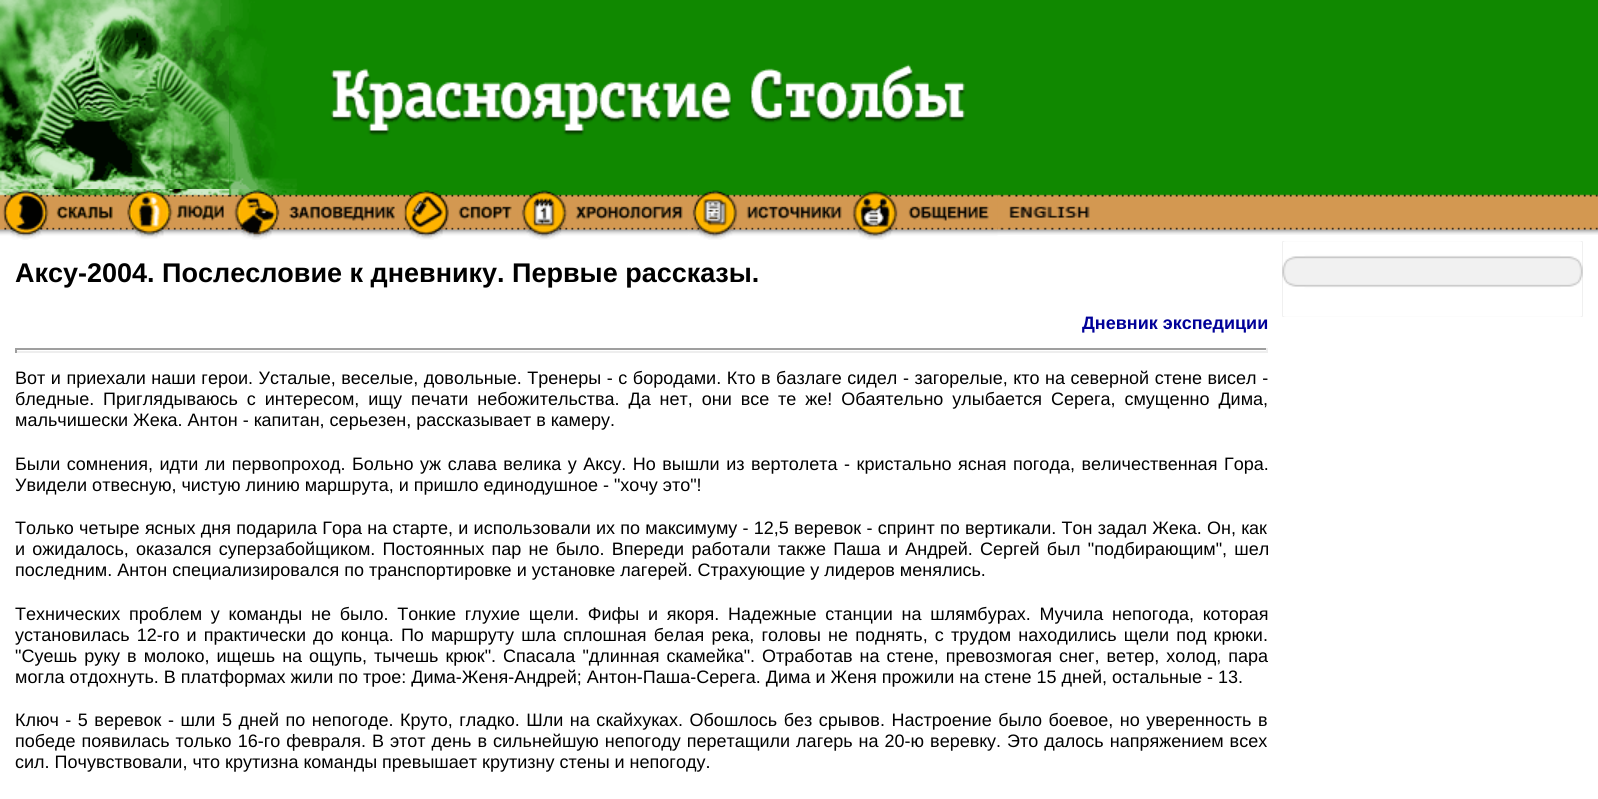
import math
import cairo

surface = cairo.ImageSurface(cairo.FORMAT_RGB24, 1598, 799)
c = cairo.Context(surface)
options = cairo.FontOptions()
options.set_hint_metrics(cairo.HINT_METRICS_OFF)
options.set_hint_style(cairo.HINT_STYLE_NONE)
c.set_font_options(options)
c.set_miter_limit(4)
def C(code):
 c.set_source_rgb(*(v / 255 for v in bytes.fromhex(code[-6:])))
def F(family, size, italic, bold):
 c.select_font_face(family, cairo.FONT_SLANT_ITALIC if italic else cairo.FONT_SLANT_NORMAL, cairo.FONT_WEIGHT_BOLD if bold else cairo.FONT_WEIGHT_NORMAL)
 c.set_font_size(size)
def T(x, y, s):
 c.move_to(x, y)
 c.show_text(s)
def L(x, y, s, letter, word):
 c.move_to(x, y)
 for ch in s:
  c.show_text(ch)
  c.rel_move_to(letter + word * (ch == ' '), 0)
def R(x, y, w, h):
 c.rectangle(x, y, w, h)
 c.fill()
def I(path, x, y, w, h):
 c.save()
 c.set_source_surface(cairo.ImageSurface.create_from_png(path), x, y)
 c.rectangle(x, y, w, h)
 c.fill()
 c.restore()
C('ffffff')
c.paint()
C('108800')
R(229,0,1369,189)
I('1.png',0,0,230,189)
I('2.png',229,0,736,189)
I('3.png',118,189,1480,46)
I('4.png',0,189,119,51)
I('5.png',118,189,112,50)
I('6.png',229,189,170,51)
I('7.png',399,190,119,50)
I('8.png',517,190,172,50)
I('9.png',689,190,159,50)
I('10.png',847,190,151,50)
I('11.png',997,194,119,36)
F('Liberation Sans',27,0,1)
C('000000')
T(15,282,'Аксу-2004. Послесловие к дневнику. Первые рассказы.')
F('Liberation Sans',18,0,1)
C('000099')
T(1082,329,'Дневник экспедиции')
C('9f9f9f')
R(15,348,1253,2)
C('eeeeee')
R(1266,348,2,5)
R(15,351,1253,2)
C('9f9f9f')
R(15,348,2,5)
F('Liberation Sans',18,0,0)
C('000000')
L(15,384,'Вот и приехали наши герои. Усталые, веселые, довольные. Тренеры - с бородами. Кто в базлаге сидел - загорелые, кто на северной стене висел -',0,.55)
L(15,405,'бледные. Приглядываюсь с интересом, ищу печати небожительства. Да нет, они все те же! Обаятельно улыбается Серега, смущенно Дима,',0,3.9)
T(15,426,'мальчишески Жека. Антон - капитан, серьезен, рассказывает в камеру.')
L(15,470,'Были сомнения, идти ли первопроход. Больно уж слава велика у Аксу. Но вышли из вертолета - кристально ясная погода, величественная Гора.',0,1.5)
T(15,491,'Увидели отвесную, чистую линию маршрута, и пришло единодушное - "хочу это"!')
L(15,534,'Только четыре ясных дня подарила Гора на старте, и использовали их по максимуму - 12,5 веревок - спринт по вертикали. Тон задал Жека. Он, как',0,.25)
L(15,555,'и ожидалось, оказался суперзабойщиком. Постоянных пар не было. Впереди работали также Паша и Андрей. Сергей был "подбирающим", шел',0,2.25)
T(15,576,'последним. Антон специализировался по транспортировке и установке лагерей. Страхующие у лидеров менялись.')
L(15,620,'Технических проблем у команды не было. Тонкие глухие щели. Фифы и якоря. Надежные станции на шлямбурах. Мучила непогода, которая',0,3.75)
L(15,641,'установилась 12-го и практически до конца. По маршруту шла сплошная белая река, головы не поднять, с трудом находились щели под крюки.',0,2.1)
L(15,662,'"Суешь руку в молоко, ищешь на ощупь, тычешь крюк". Спасала "длинная скамейка". Отработав на стене, превозмогая снег, ветер, холод, пара',0,2)
T(15,683,'могла отдохнуть. В платформах жили по трое: Дима-Женя-Андрей; Антон-Паша-Серега. Дима и Женя прожили на стене 15 дней, остальные - 13.')
L(15,726,'Ключ - 5 веревок - шли 5 дней по непогоде. Круто, гладко. Шли на скайхуках. Обошлось без срывов. Настроение было боевое, но уверенность в',0,1.5)
L(15,747,'победе появилась только 16-го февраля. В этот день в сильнейшую непогоду перетащили лагерь на 20-ю веревку. Это далось напряжением всех',0,1)
T(15,768,'сил. Почувствовали, что крутизна команды превышает крутизну стены и непогоду.')
I('12.png',1282,241,301,76)
I('13.png',1282,241,301,31)
I('14.png',1282,271,301,46)
surface.write_to_png('o.png')
